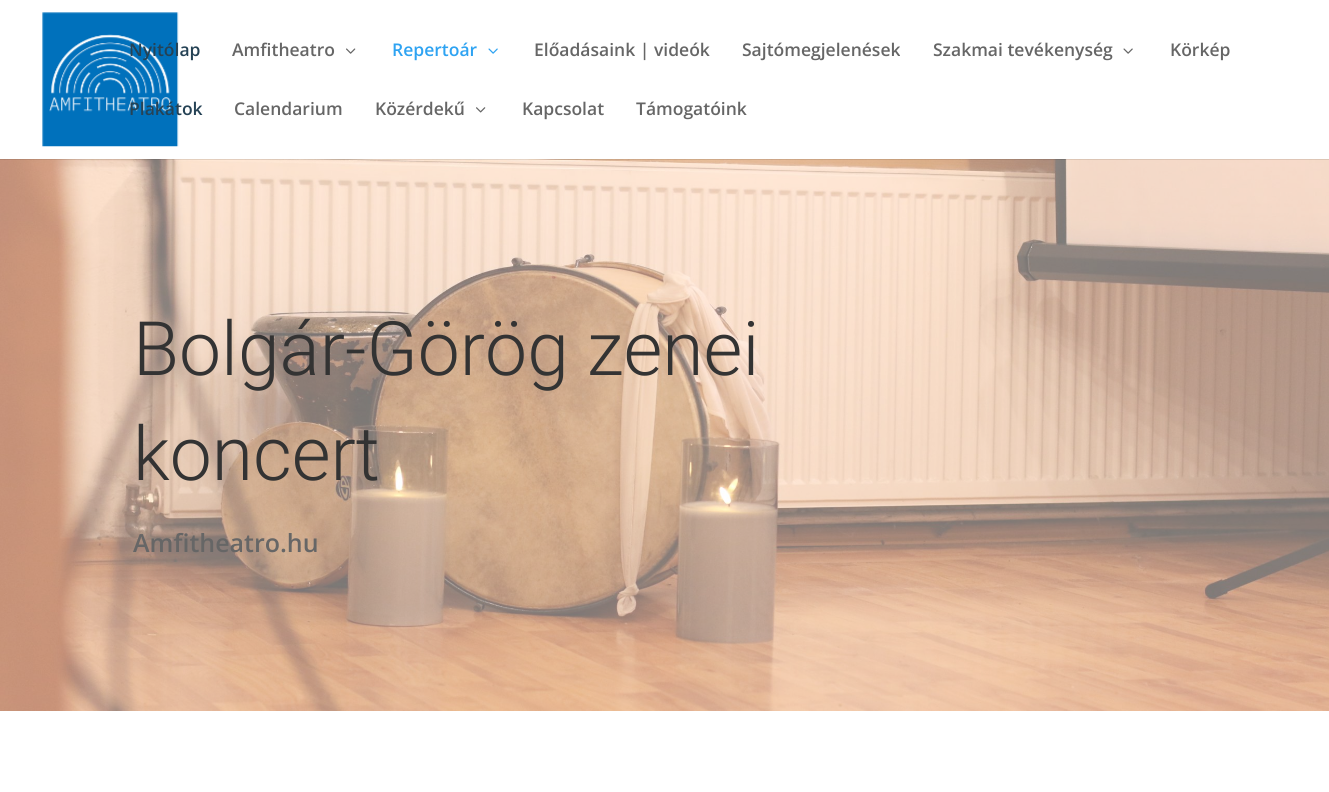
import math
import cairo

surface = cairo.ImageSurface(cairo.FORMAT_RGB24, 1329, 792)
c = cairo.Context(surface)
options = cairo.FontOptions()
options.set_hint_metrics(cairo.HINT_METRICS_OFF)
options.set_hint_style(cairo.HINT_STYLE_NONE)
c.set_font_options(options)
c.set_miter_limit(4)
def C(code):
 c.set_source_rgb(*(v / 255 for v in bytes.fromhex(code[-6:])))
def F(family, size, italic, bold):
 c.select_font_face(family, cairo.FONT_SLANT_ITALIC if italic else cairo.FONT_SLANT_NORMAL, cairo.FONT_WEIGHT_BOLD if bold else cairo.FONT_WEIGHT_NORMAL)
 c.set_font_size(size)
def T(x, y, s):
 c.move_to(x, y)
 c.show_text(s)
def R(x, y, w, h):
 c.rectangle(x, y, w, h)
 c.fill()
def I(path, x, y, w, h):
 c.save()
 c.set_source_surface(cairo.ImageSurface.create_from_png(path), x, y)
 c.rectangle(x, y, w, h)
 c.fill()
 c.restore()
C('ffffff')
c.paint()
I('6.png',0,159,1329,552)
c.set_source_rgba(0,0,0,0.1)
R(0,159,1329,1)
I('1.png',42,12,137,135)
F('Open Sans SemiBold',17.5,0,0)
C('254255')
T(129,56,'Nyitólap')
C('666666')
T(232,56,'Amfitheatro')
I('2.png',346,48,10,6)
C('2ea3f2')
T(392,56,'Repertoár')
I('3.png',488,48,10,6)
C('666666')
T(534,56,'Előadásaink | videók')
T(742,56,'Sajtómegjelenések')
T(933,56,'Szakmai tevékenység')
I('4.png',1123,48,10,6)
T(1170,56,'Körkép')
C('254255')
T(129,115,'Plakátok')
C('666666')
T(234,115,'Calendarium')
T(375,115,'Közérdekű')
I('5.png',476,107,10,6)
T(522,115,'Kapcsolat')
T(636,115,'Támogatóink')
F('Roboto Light',75,0,0)
C('333333')
T(133,375,'Bolgár-Görög zenei')
T(133,480,'koncert')
F('Open Sans SemiBold',25,0,0)
C('666666')
T(133,552,'Amfitheatro.hu')
surface.write_to_png('o.png')
